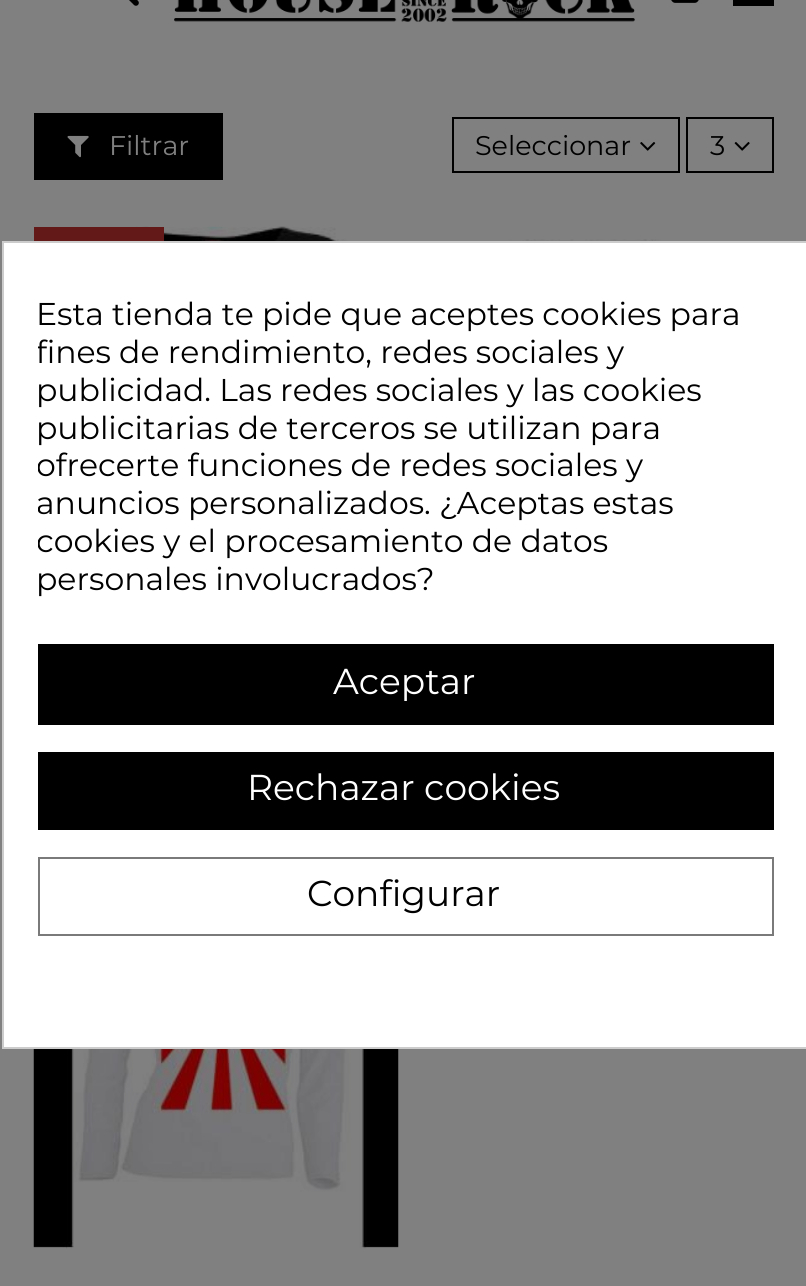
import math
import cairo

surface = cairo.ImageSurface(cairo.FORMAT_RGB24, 806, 1286)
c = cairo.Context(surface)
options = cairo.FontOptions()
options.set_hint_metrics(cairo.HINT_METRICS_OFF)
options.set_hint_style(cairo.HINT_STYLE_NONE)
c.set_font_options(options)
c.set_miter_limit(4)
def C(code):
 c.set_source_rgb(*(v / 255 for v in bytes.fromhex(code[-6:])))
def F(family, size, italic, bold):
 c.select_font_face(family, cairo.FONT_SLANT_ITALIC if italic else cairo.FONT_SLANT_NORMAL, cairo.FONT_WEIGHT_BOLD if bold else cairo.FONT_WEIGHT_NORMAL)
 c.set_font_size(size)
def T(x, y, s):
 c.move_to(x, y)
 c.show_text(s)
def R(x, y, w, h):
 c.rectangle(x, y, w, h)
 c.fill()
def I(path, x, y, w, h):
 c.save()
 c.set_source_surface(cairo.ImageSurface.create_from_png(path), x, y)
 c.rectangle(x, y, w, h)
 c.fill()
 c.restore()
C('808080')
c.paint()
I('1.png',129,0,10,6)
I('2.png',174,0,461,22)
I('3.png',671,0,28,3)
C('000000')
R(733,0,41,6)
R(34,113,189,67)
I('4.png',67,135,22,23)
F('Montserrat',27,0,0)
C('808080')
T(109,155,'Filtrar')
c.rectangle(453,118,226,54)
C('000000')
c.stroke()
T(475,155,'Seleccionar')
I('5.png',640,142,16,9)
c.rectangle(687,118,86,54)
c.stroke()
T(710,155,'3')
I('6.png',734,142,16,9)
I('7.png',59,226,315,15)
C('641919')
R(34,227,130,14)
I('8.png',432,239,329,2)
I('9.png',33,1049,366,200)
C('ffffff')
c.rectangle(3,242,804,806)
c.fill_preserve()
C('cccccc')
c.stroke()
F('Montserrat',31.5,0,0)
C('000000')
T(36,325,'Esta tienda te pide que aceptes cookies para')
c.save()
c.rectangle(38,297,736,302)
c.clip()
T(36,363,'fines de rendimiento, redes sociales y')
c.restore()
T(36,401,'publicidad. Las redes sociales y las cookies')
T(36,439,'publicitarias de terceros se utilizan para')
c.save()
c.rectangle(38,297,736,302)
c.clip()
T(36,476,'ofrecerte funciones de redes sociales y')
T(36,514,'anuncios personalizados. ¿Aceptas estas')
T(36,552,'cookies y el procesamiento de datos')
c.restore()
T(36,590,'personales involucrados?')
R(38,644,736,81)
F('Montserrat',36,0,0)
C('ffffff')
T(333,694,'Aceptar')
C('000000')
R(38,752,736,78)
C('ffffff')
T(247,800,'Rechazar cookies')
c.rectangle(39,858,734,77)
C('7a7a7a')
c.stroke()
C('000000')
T(307,906,'Configurar')
surface.write_to_png('o.png')
